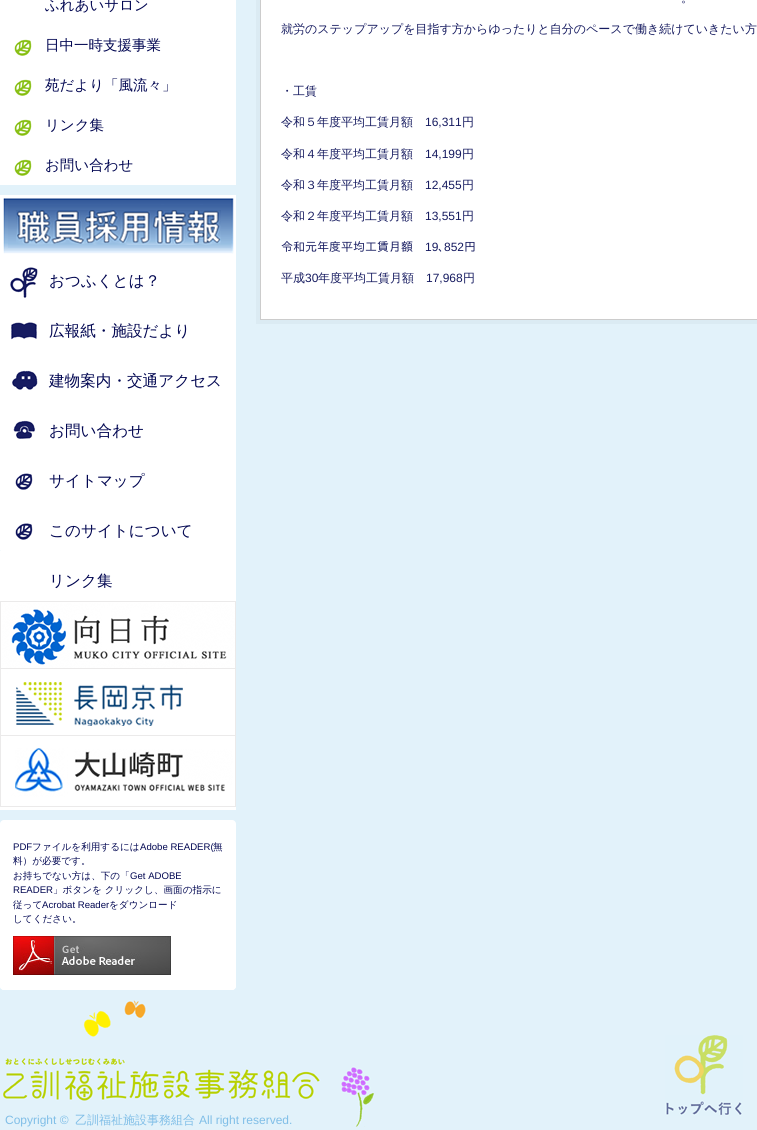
import math
import cairo

surface = cairo.ImageSurface(cairo.FORMAT_RGB24, 757, 1130)
c = cairo.Context(surface)
options = cairo.FontOptions()
options.set_hint_metrics(cairo.HINT_METRICS_OFF)
options.set_hint_style(cairo.HINT_STYLE_NONE)
c.set_font_options(options)
c.set_miter_limit(4)
def C(code):
 c.set_source_rgb(*(v / 255 for v in bytes.fromhex(code[-6:])))
def F(family, size, italic, bold):
 c.select_font_face(family, cairo.FONT_SLANT_ITALIC if italic else cairo.FONT_SLANT_NORMAL, cairo.FONT_WEIGHT_BOLD if bold else cairo.FONT_WEIGHT_NORMAL)
 c.set_font_size(size)
def T(x, y, s):
 c.move_to(x, y)
 c.show_text(s)
def R(x, y, w, h):
 c.rectangle(x, y, w, h)
 c.fill()
def Q(x, y, w, h, r):
 c.new_sub_path()
 for i, (u, v) in enumerate([(x + w - r, y + h - r), (x + r, y + h - r), (x + r, y + r), (x + w - r, y + r)]):
  c.arc(u, v, r, i * math.pi / 2, (i + 1) * math.pi / 2)
 c.close_path()
def I(path, x, y, w, h):
 c.save()
 c.set_source_surface(cairo.ImageSurface.create_from_png(path), x, y)
 c.rectangle(x, y, w, h)
 c.fill()
 c.restore()
C('e2f2fa')
c.paint()
C('ffffff')
R(0,0,236,159)
F('WenQuanYi Zen Hei Medium',14.5,0,0)
C('020752')
T(45,10,'ふれあいサロン')
I('1.png',14,39,18,17)
T(45,50,'日中一時支援事業')
I('1.png',14,79,18,17)
T(45,90,'苑だより「風流々」')
I('1.png',14,119,18,17)
T(45,130,'リンク集')
I('2.png',0,159,236,26)
T(45,170,'お問い合わせ')
C('ffffff')
R(0,195,236,615)
I('3.png',3,198,231,56)
I('4.png',10,267,28,31)
F('WenQuanYi Zen Hei Medium',15.6,0,0)
C('020752')
T(49,286,'おつふくとは？')
I('5.png',11,322,26,18)
T(49,336,'広報紙・施設だより')
I('6.png',12,370,26,20)
T(49,386,'建物案内・交通アクセス')
I('7.png',13,420,22,19)
T(49,436,'お問い合わせ')
I('8.png',15,473,18,17)
T(49,486,'サイトマップ')
I('9.png',0,523,33,28)
T(49,536,'このサイトについて')
T(49,586,'リンク集')
I('10.png',0,601,236,67)
I('11.png',0,668,236,67)
I('12.png',0,735,236,72)
C('ffffff')
Q(0,820,236,170,4)
c.fill()
Q(0,830,236,160,4)
c.fill()
F('Liberation Sans',9.6,0,0)
C('020752')
T(13,850,'PDF')
F('WenQuanYi Zen Hei Medium',9.6,0,0)
T(32,850,'ファイルを利用するには')
F('Liberation Sans',9.6,0,0)
T(140,850,'Adobe READER(')
F('WenQuanYi Zen Hei Medium',9.6,0,0)
T(213,850,'無')
T(13,864,'料）が必要です。')
T(13,879,'お持ちでない方は、下の「')
F('Liberation Sans',9.6,0,0)
T(130,879,'Get ADOBE')
T(13,893,'READER')
F('WenQuanYi Zen Hei Medium',9.6,0,0)
T(53,893,'」ボタンを クリックし、画面の指示に')
T(13,908,'従って')
F('Liberation Sans',9.6,0,0)
T(42,908,'Acrobat Reader')
F('WenQuanYi Zen Hei Medium',9.6,0,0)
T(109,908,'をダウンロード')
T(13,922,'してください。')
I('13.png',13,936,158,39)
c.rectangle(258,-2,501,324)
C('dbebf3')
c.set_line_width(4)
c.stroke()
C('ffffff')
c.rectangle(260.5,-.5,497,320)
c.fill_preserve()
C('cccccc')
c.set_line_width(1)
c.stroke()
F('WenQuanYi Zen Hei Medium',12,0,0)
C('161b60')
T(681,2,'。')
T(281,33,'就労のステップアップを目指す方からゆったりと自分のペースで働き続けていきたい方')
T(281,95,'・工賃')
T(281,126,'令和５年度平均工賃月額')
F('Liberation Sans',12,0,0)
T(425,126,'16,311')
F('WenQuanYi Zen Hei Medium',12,0,0)
T(462,126,'円')
T(281,158,'令和４年度平均工賃月額')
F('Liberation Sans',12,0,0)
T(425,158,'14,199')
F('WenQuanYi Zen Hei Medium',12,0,0)
T(462,158,'円')
T(281,189,'令和３年度平均工賃月額')
F('Liberation Sans',12,0,0)
T(425,189,'12,455')
F('WenQuanYi Zen Hei Medium',12,0,0)
T(462,189,'円')
T(281,220,'令和２年度平均工賃月額')
F('Liberation Sans',12,0,0)
T(425,220,'13,551')
F('WenQuanYi Zen Hei Medium',12,0,0)
T(462,220,'円')
F('IPAGothic',12,0,0)
T(281,251,'令和元年度平均工賃月額')
F('Liberation Sans',12,0,0)
T(425,251,'19')
F('IPAGothic',12,0,0)
T(438,251,'､')
F('Liberation Sans',12,0,0)
T(444,251,'852')
F('IPAGothic',12,0,0)
T(464,251,'円')
F('WenQuanYi Zen Hei Medium',12,0,0)
T(281,282,'平成')
F('Liberation Sans',12,0,0)
T(305,282,'30')
F('WenQuanYi Zen Hei Medium',12,0,0)
T(318,282,'年度平均工賃月額')
F('Liberation Sans',12,0,0)
T(426,282,'17,968')
F('WenQuanYi Zen Hei Medium',12,0,0)
T(463,282,'円')
I('14.png',665,1035,78,81)
I('15.png',2,1000,373,127)
F('Liberation Sans',12,0,0)
C('80bee7')
T(5,1124,'Copyright ©')
F('WenQuanYi Zen Hei Medium',12,0,0)
T(75,1124,'乙訓福祉施設事務組合')
F('Liberation Sans',12,0,0)
T(199,1124,'All right reserved.')
surface.write_to_png('o.png')
